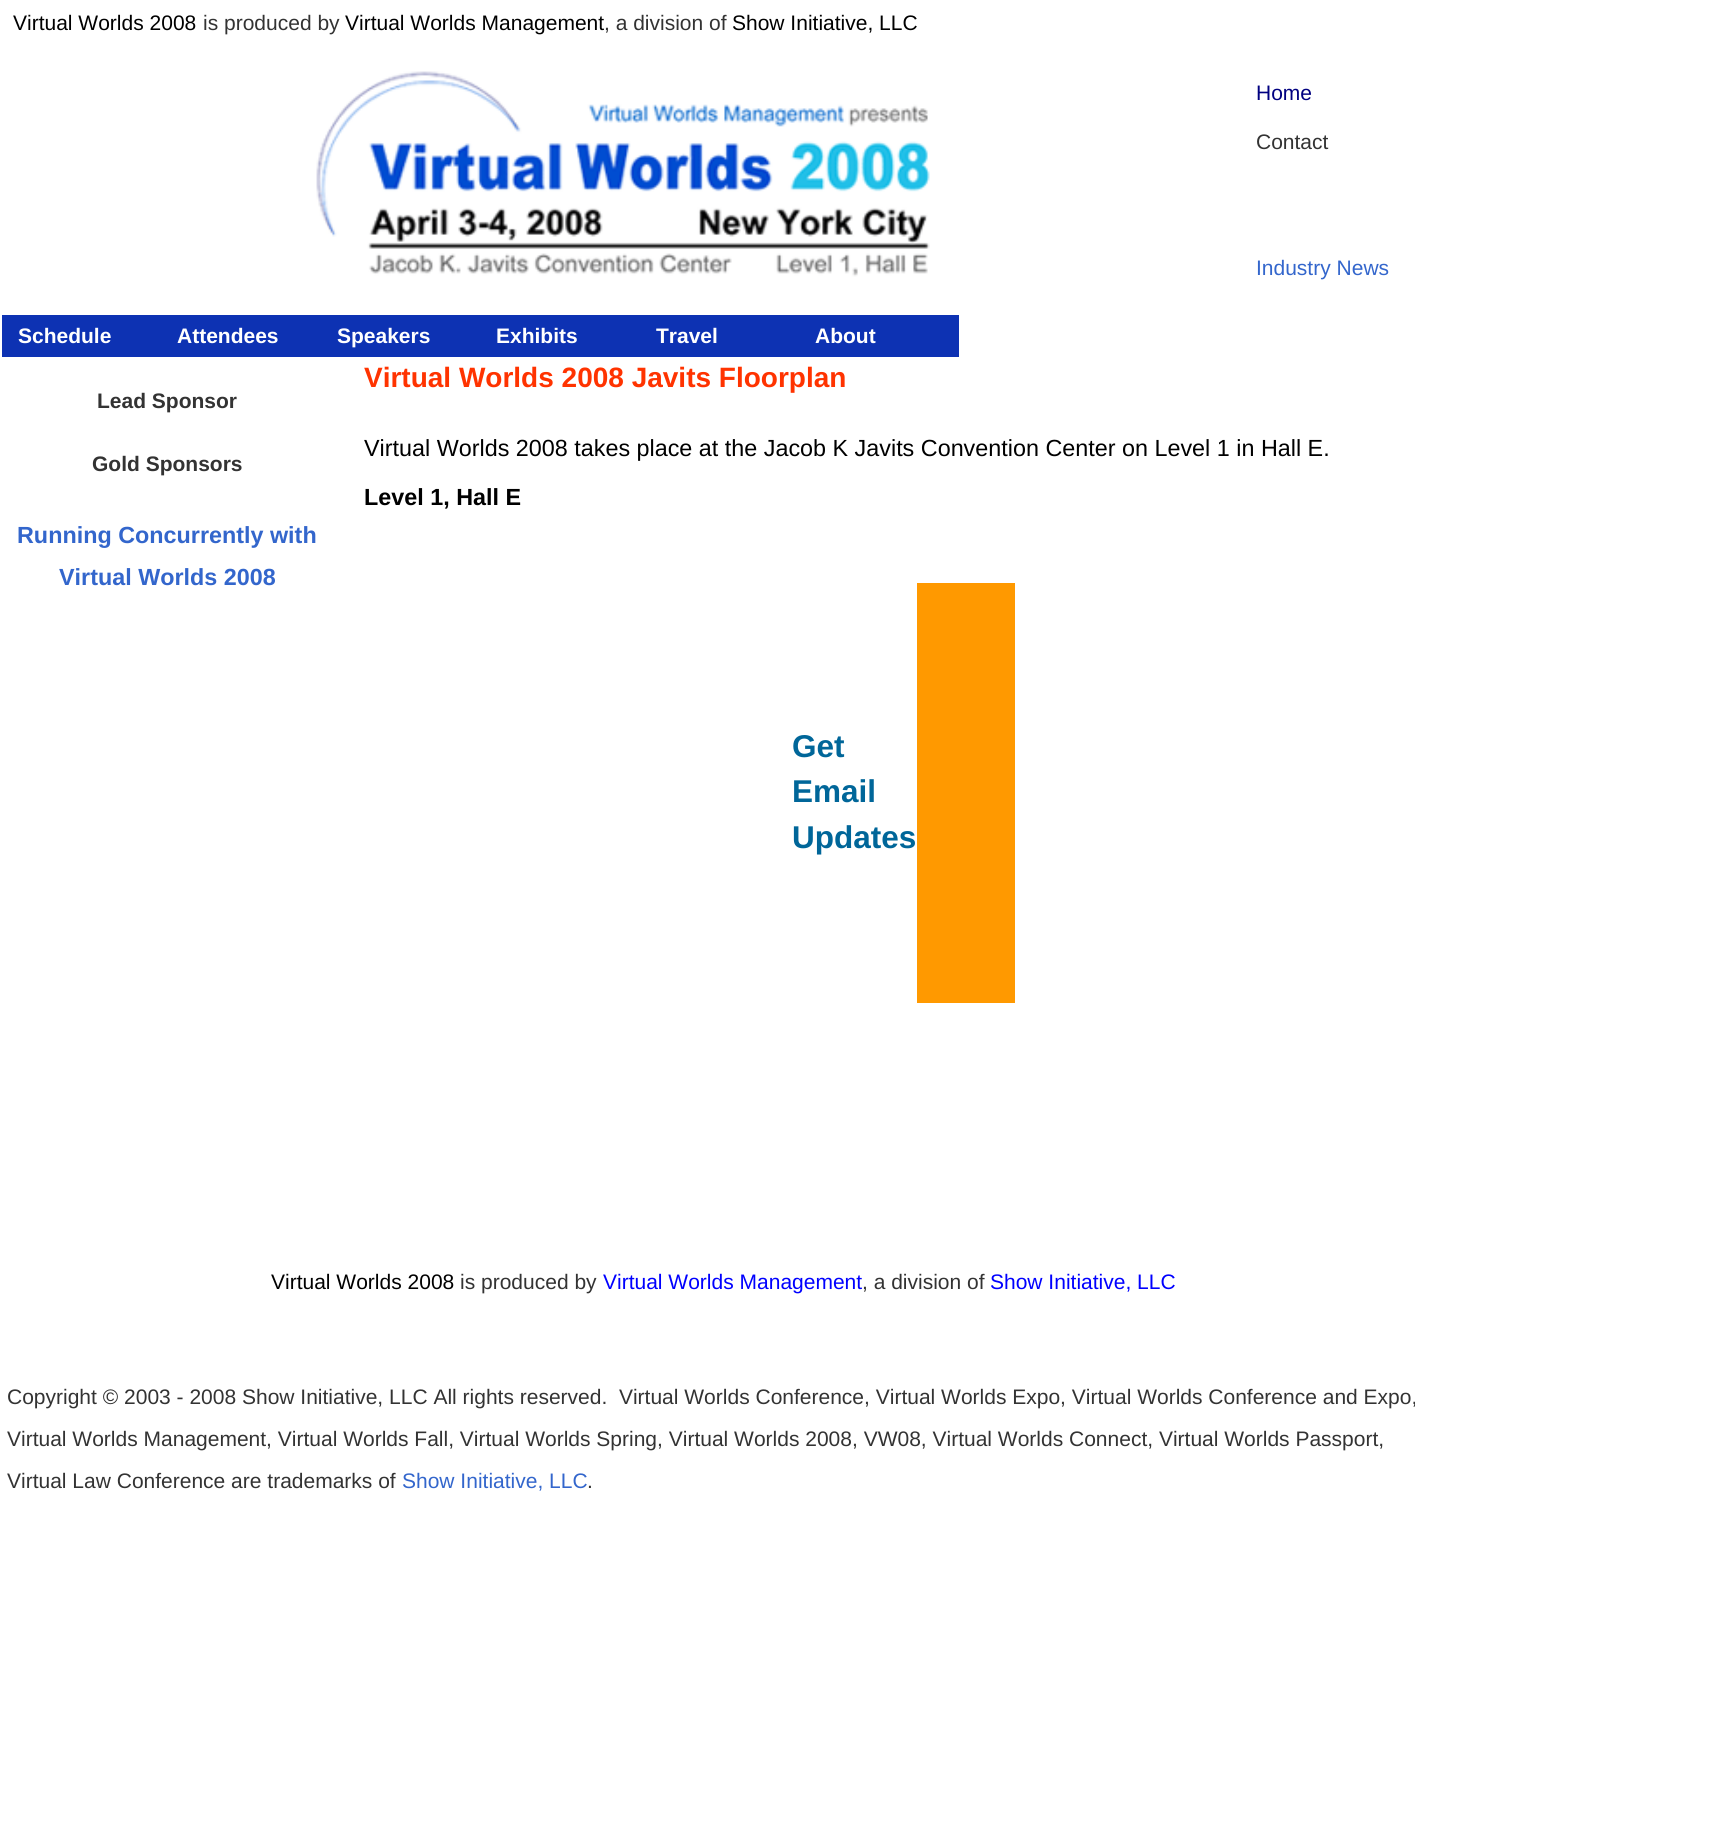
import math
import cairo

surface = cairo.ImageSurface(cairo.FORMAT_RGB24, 1715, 1833)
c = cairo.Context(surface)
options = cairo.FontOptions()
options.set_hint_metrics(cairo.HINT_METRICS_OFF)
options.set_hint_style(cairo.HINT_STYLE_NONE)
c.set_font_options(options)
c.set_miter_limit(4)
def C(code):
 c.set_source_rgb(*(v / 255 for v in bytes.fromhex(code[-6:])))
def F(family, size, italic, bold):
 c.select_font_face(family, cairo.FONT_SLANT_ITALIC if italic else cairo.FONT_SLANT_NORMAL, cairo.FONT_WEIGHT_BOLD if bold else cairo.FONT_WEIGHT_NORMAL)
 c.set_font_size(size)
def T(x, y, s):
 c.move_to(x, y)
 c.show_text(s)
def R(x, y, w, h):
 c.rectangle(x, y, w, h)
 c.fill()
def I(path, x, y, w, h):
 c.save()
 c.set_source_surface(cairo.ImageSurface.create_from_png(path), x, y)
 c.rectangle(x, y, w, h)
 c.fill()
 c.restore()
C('ffffff')
c.paint()
F('Liberation Sans',21,0,0)
C('000000')
T(13,30,'Virtual Worlds 2008')
C('333333')
T(203,30,'is produced by')
C('000000')
T(345,30,'Virtual Worlds Management')
C('333333')
T(604,30,', a division of')
C('000000')
T(732,30,'Show Initiative, LLC')
I('1.png',316,71,614,206)
C('000080')
T(1256,100,'Home')
C('333333')
T(1256,149,'Contact')
C('3366cc')
T(1256,275,'Industry News')
C('0d32b3')
R(2,315,957,42)
F('Liberation Sans',21,0,1)
C('ffffff')
T(18,343,'Schedule')
T(177,343,'Attendees')
T(337,343,'Speakers')
T(496,343,'Exhibits')
T(656,343,'Travel')
T(815,343,'About')
F('Liberation Sans',28,0,1)
C('ff3300')
T(364,387,'Virtual Worlds 2008 Javits Floorplan')
F('Liberation Sans',21,0,1)
C('333333')
T(97,408,'Lead Sponsor')
T(92,471,'Gold Sponsors')
F('Liberation Sans',23.35,0,1)
C('3366cc')
T(17,543,'Running Concurrently with')
T(59,585,'Virtual Worlds 2008')
F('Liberation Sans',23.35,0,0)
C('000000')
T(364,456,'Virtual Worlds 2008 takes place at the Jacob K Javits Convention Center on Level 1 in Hall E.')
F('Liberation Sans',23.35,0,1)
T(364,505,'Level 1, Hall E')
F('Liberation Sans',31.5,0,1)
C('006699')
T(792,757,'Get')
T(792,802,'Email')
T(792,848,'Updates')
C('ff9900')
R(917,583,98,420)
F('Liberation Sans',21,0,0)
C('000000')
T(271,1289,'Virtual Worlds 2008')
C('333333')
T(460,1289,'is produced by')
C('0000ff')
T(603,1289,'Virtual Worlds Management')
C('333333')
T(862,1289,', a division of')
C('0000ff')
T(990,1289,'Show Initiative, LLC')
C('333333')
T(7,1404,'Copyright © 2003 - 2008 Show Initiative, LLC All rights reserved.  Virtual Worlds Conference, Virtual Worlds Expo, Virtual Worlds Conference and Expo,')
T(7,1446,'Virtual Worlds Management, Virtual Worlds Fall, Virtual Worlds Spring, Virtual Worlds 2008, VW08, Virtual Worlds Connect, Virtual Worlds Passport,')
T(7,1488,'Virtual Law Conference are trademarks of')
C('3366cc')
T(402,1488,'Show Initiative, LLC')
C('333333')
T(587,1488,'.')
surface.write_to_png('o.png')
